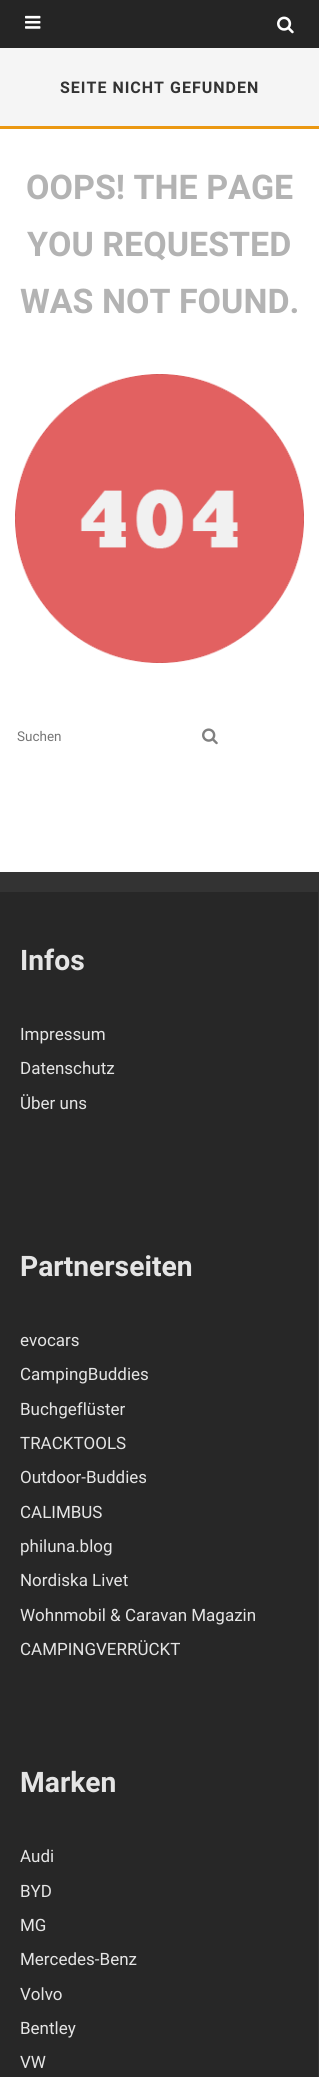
import math
import cairo

surface = cairo.ImageSurface(cairo.FORMAT_RGB24, 319, 2077)
c = cairo.Context(surface)
options = cairo.FontOptions()
options.set_hint_metrics(cairo.HINT_METRICS_OFF)
options.set_hint_style(cairo.HINT_STYLE_NONE)
c.set_font_options(options)
c.set_miter_limit(4)
def C(code):
 c.set_source_rgb(*(v / 255 for v in bytes.fromhex(code[-6:])))
def F(family, size, italic, bold):
 c.select_font_face(family, cairo.FONT_SLANT_ITALIC if italic else cairo.FONT_SLANT_NORMAL, cairo.FONT_WEIGHT_BOLD if bold else cairo.FONT_WEIGHT_NORMAL)
 c.set_font_size(size)
def T(x, y, s):
 c.move_to(x, y)
 c.show_text(s)
def L(x, y, s, letter, word):
 c.move_to(x, y)
 for ch in s:
  c.show_text(ch)
  c.rel_move_to(letter + word * (ch == ' '), 0)
def R(x, y, w, h):
 c.rectangle(x, y, w, h)
 c.fill()
def I(path, x, y, w, h):
 c.save()
 c.set_source_surface(cairo.ImageSurface.create_from_png(path), x, y)
 c.rectangle(x, y, w, h)
 c.fill()
 c.restore()
C('ffffff')
c.paint()
C('252525')
R(0,0,319,48)
I('1.png',25,15,16,14)
I('2.png',277,16,17,18)
C('f5f5f5')
R(0,48,319,78)
C('eb9812')
R(0,126,319,3)
F('Roboto',16,0,1)
C('333333')
L(60,93,'SEITE NICHT GEFUNDEN',1,0)
F('Roboto',34,0,1)
C('b3b3b3')
T(26,199,'OOPS! THE PAGE')
T(27,256,'YOU REQUESTED')
T(20,313,'WAS NOT FOUND.')
I('3.png',15,374,289,289)
F('Roboto',13.5,0,0)
C('757575')
T(17,741,'Suchen')
I('4.png',202,728,16,17)
C('333333')
R(0,872,319,20)
C('272727')
R(0,892,318,1185)
C('333333')
R(318,892,1,1185)
F('Roboto',28.25,0,1)
C('e5e5e5')
T(20,970,'Infos')
F('Roboto',17,0,0)
T(20,1040,'Impressum')
T(20,1074,'Datenschutz')
T(20,1109,'Über uns')
F('Roboto',28.25,0,1)
T(20,1276,'Partnerseiten')
F('Roboto',17,0,0)
T(20,1346,'evocars')
T(20,1380,'CampingBuddies')
T(20,1415,'Buchgeflüster')
T(20,1449,'TRACKTOOLS')
T(20,1483,'Outdoor-Buddies')
T(20,1518,'CALIMBUS')
T(20,1552,'philuna.blog')
T(20,1586,'Nordiska Livet')
T(20,1621,'Wohnmobil & Caravan Magazin')
T(20,1655,'CAMPINGVERRÜCKT')
F('Roboto',28.25,0,1)
T(20,1792,'Marken')
F('Roboto',17,0,0)
T(20,1862,'Audi')
T(20,1897,'BYD')
T(20,1931,'MG')
T(20,1965,'Mercedes-Benz')
T(20,2000,'Volvo')
T(20,2034,'Bentley')
T(20,2068,'VW')
surface.write_to_png('o.png')
